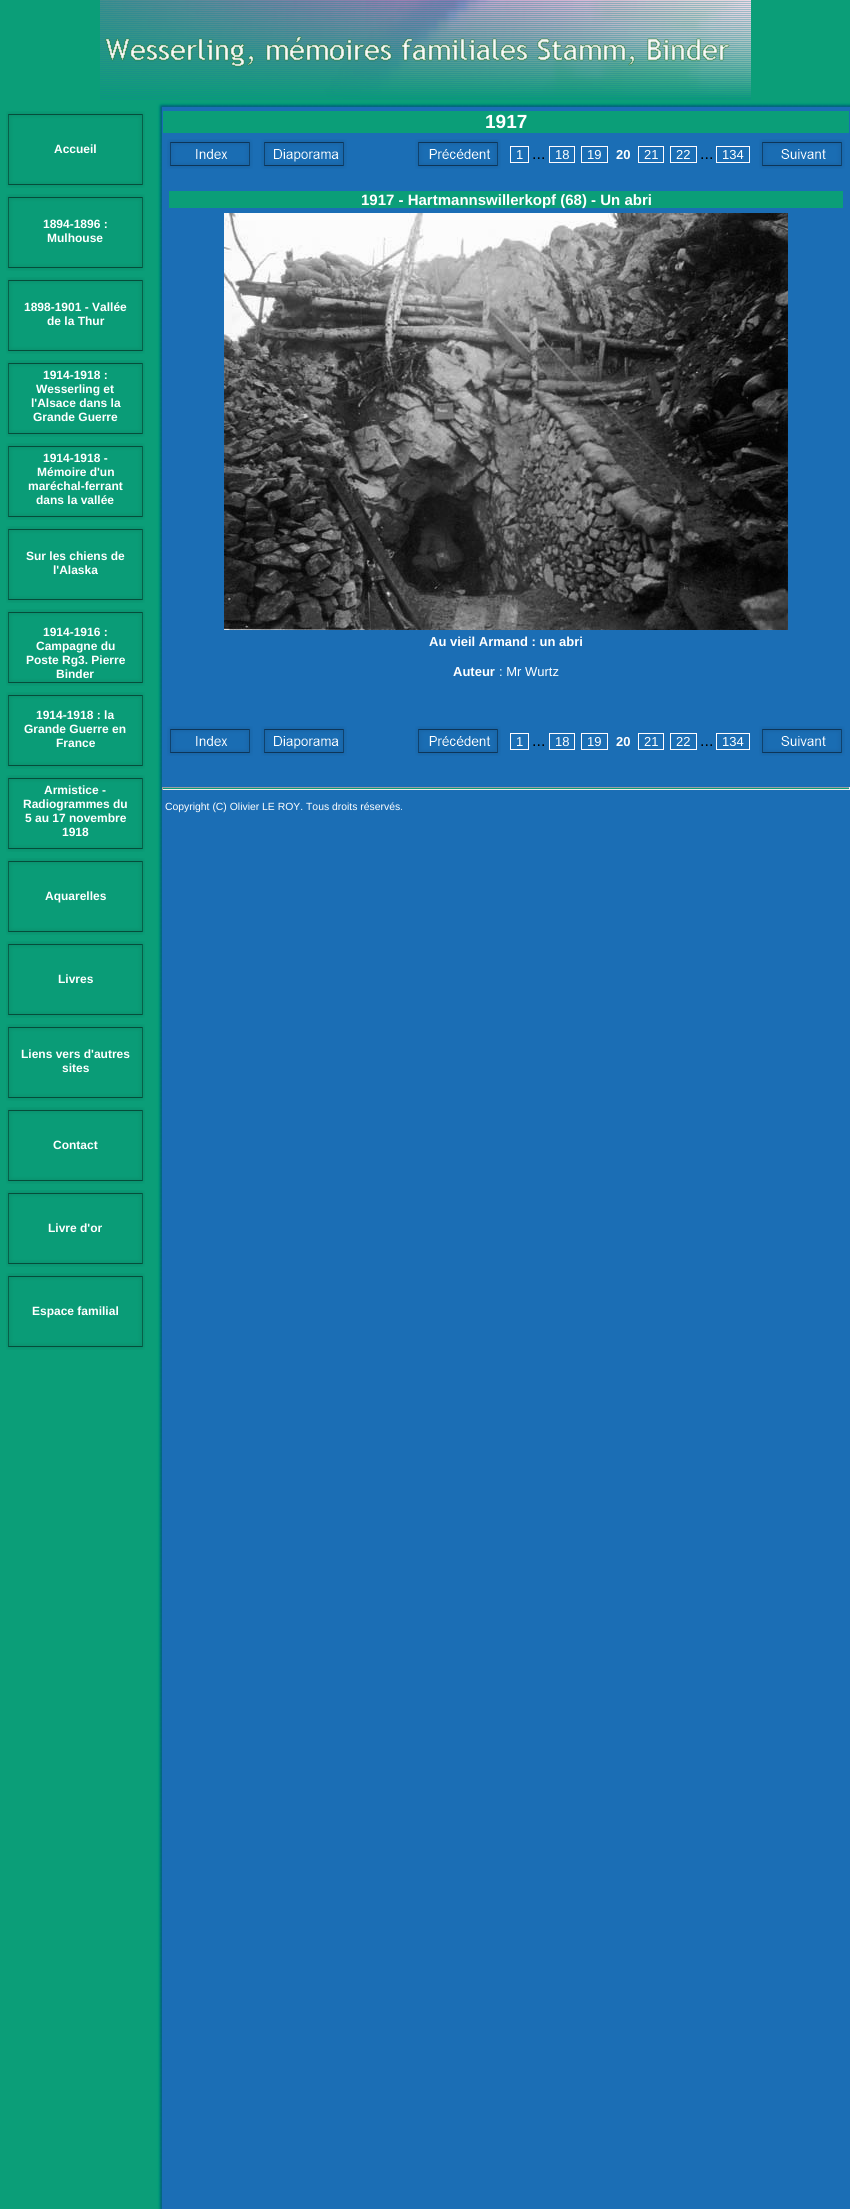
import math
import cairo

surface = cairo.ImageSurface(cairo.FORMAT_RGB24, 850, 2209)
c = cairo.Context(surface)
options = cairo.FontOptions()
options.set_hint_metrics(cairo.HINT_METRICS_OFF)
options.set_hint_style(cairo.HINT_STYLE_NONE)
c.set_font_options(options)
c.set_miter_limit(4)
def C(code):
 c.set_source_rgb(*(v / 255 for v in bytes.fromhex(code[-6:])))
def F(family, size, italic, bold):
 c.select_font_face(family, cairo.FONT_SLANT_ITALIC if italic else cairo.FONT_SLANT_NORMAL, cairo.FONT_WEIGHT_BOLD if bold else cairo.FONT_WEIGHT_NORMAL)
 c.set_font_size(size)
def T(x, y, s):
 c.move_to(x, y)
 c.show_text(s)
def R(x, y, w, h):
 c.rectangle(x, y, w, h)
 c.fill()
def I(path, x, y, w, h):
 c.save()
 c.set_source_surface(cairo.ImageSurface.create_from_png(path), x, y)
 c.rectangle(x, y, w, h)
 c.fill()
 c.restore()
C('1b6eb5')
c.paint()
C('0b9e78')
R(0,0,850,100)
I('1.png',100,0,651,100)
R(0,100,155,2109)
I('2.png',155,100,7,7)
I('3.png',162,100,688,7)
I('4.png',6,111,139,77)
F('Liberation Sans',12,0,1)
C('ffffff')
T(54,153,'Accueil')
I('4.png',6,194,139,77)
T(43,228,'1894-1896 :')
T(47,242,'Mulhouse')
I('4.png',6,277,139,77)
T(24,311,'1898-1901 - Vallée')
T(47,325,'de la Thur')
I('4.png',6,360,139,77)
T(43,379,'1914-1918 :')
T(36,393,'Wesserling et')
T(31,407,'l\'Alsace dans la')
T(33,421,'Grande Guerre')
I('4.png',6,443,139,77)
T(43,462,'1914-1918 -')
T(37,476,'Mémoire d\'un')
T(28,490,'maréchal-ferrant')
T(36,504,'dans la vallée')
I('4.png',6,526,139,77)
T(26,560,'Sur les chiens de')
T(53,574,'l\'Alaska')
I('4.png',6,609,139,77)
T(43,636,'1914-1916 :')
T(36,650,'Campagne du')
T(26,664,'Poste Rg3. Pierre')
T(56,678,'Binder')
I('4.png',6,692,139,77)
T(36,719,'1914-1918 : la')
T(24,733,'Grande Guerre en')
T(56,747,'France')
I('4.png',6,775,139,77)
T(44,794,'Armistice -')
T(23,808,'Radiogrammes du')
T(25,822,'5 au 17 novembre')
T(62,836,'1918')
I('4.png',6,858,139,77)
T(45,900,'Aquarelles')
I('4.png',6,941,139,77)
T(58,983,'Livres')
I('4.png',6,1024,139,77)
T(21,1058,'Liens vers d\'autres')
T(62,1072,'sites')
I('4.png',6,1107,139,77)
T(53,1149,'Contact')
I('4.png',6,1190,139,77)
T(48,1232,'Livre d\'or')
I('4.png',6,1273,139,77)
T(32,1315,'Espace familial')
I('5.png',155,107,7,2102)
C('0b9e78')
R(163,111,686,22)
F('Liberation Sans',19,0,1)
C('ffffff')
T(485,128,'1917')
I('6.png',167,139,86,30)
I('7.png',261,139,86,30)
I('8.png',415,139,86,30)
c.rectangle(510.5,146.5,18,16)
C('fffbfe')
c.set_line_width(1)
c.stroke()
F('Liberation Sans',13,0,0)
C('ffffff')
T(516,159,'1')
F('Liberation Sans',16,0,0)
C('000000')
T(532,159,'...')
c.rectangle(549.5,146.5,25,16)
C('fffbfe')
c.stroke()
F('Liberation Sans',13,0,0)
C('ffffff')
T(555,159,'18')
c.rectangle(581.5,146.5,26,16)
C('fffbfe')
c.stroke()
C('ffffff')
T(587,159,'19')
F('Liberation Sans',13,0,1)
T(616,159,'20')
c.rectangle(638.5,146.5,25,16)
C('fffbfe')
c.stroke()
F('Liberation Sans',13,0,0)
C('ffffff')
T(644,159,'21')
c.rectangle(670.5,146.5,26,16)
C('fffbfe')
c.stroke()
C('ffffff')
T(676,159,'22')
F('Liberation Sans',16,0,0)
C('000000')
T(700,159,'...')
c.rectangle(716.5,146.5,33,16)
C('fffbfe')
c.stroke()
F('Liberation Sans',13,0,0)
C('ffffff')
T(722,159,'134')
I('9.png',759,139,86,30)
C('0b9e78')
R(169,191,674,17)
F('Liberation Sans',15,0,1)
C('ffffff')
T(361,205,'1917 - Hartmannswillerkopf (68) - Un abri')
I('10.png',224,213,564,417)
F('Liberation Sans',13,0,1)
T(429,646,'Au vieil Armand : un abri')
T(453,676,'Auteur')
F('Liberation Sans',13,0,0)
T(499,676,': Mr Wurtz')
I('6.png',167,726,86,30)
I('7.png',261,726,86,30)
I('8.png',415,726,86,30)
c.rectangle(510.5,733.5,18,16)
C('fffbfe')
c.stroke()
C('ffffff')
T(516,746,'1')
F('Liberation Sans',16,0,0)
C('000000')
T(532,746,'...')
c.rectangle(549.5,733.5,25,16)
C('fffbfe')
c.stroke()
F('Liberation Sans',13,0,0)
C('ffffff')
T(555,746,'18')
c.rectangle(581.5,733.5,26,16)
C('fffbfe')
c.stroke()
C('ffffff')
T(587,746,'19')
F('Liberation Sans',13,0,1)
T(616,746,'20')
c.rectangle(638.5,733.5,25,16)
C('fffbfe')
c.stroke()
F('Liberation Sans',13,0,0)
C('ffffff')
T(644,746,'21')
c.rectangle(670.5,733.5,26,16)
C('fffbfe')
c.stroke()
C('ffffff')
T(676,746,'22')
F('Liberation Sans',16,0,0)
C('000000')
T(700,746,'...')
c.rectangle(716.5,733.5,33,16)
C('fffbfe')
c.stroke()
F('Liberation Sans',13,0,0)
C('ffffff')
T(722,746,'134')
I('9.png',759,726,86,30)
C('0b9e78')
R(162,788,688,1)
C('9f9f9f')
R(162,787,688,1)
C('eeeeee')
R(849,787,1,3)
R(162,789,688,1)
C('9f9f9f')
R(162,787,1,3)
F('Liberation Sans',10.4,0,0)
C('ffffff')
T(165,810,'Copyright (C) Olivier LE ROY. Tous droits réservés.')
surface.write_to_png('o.png')
